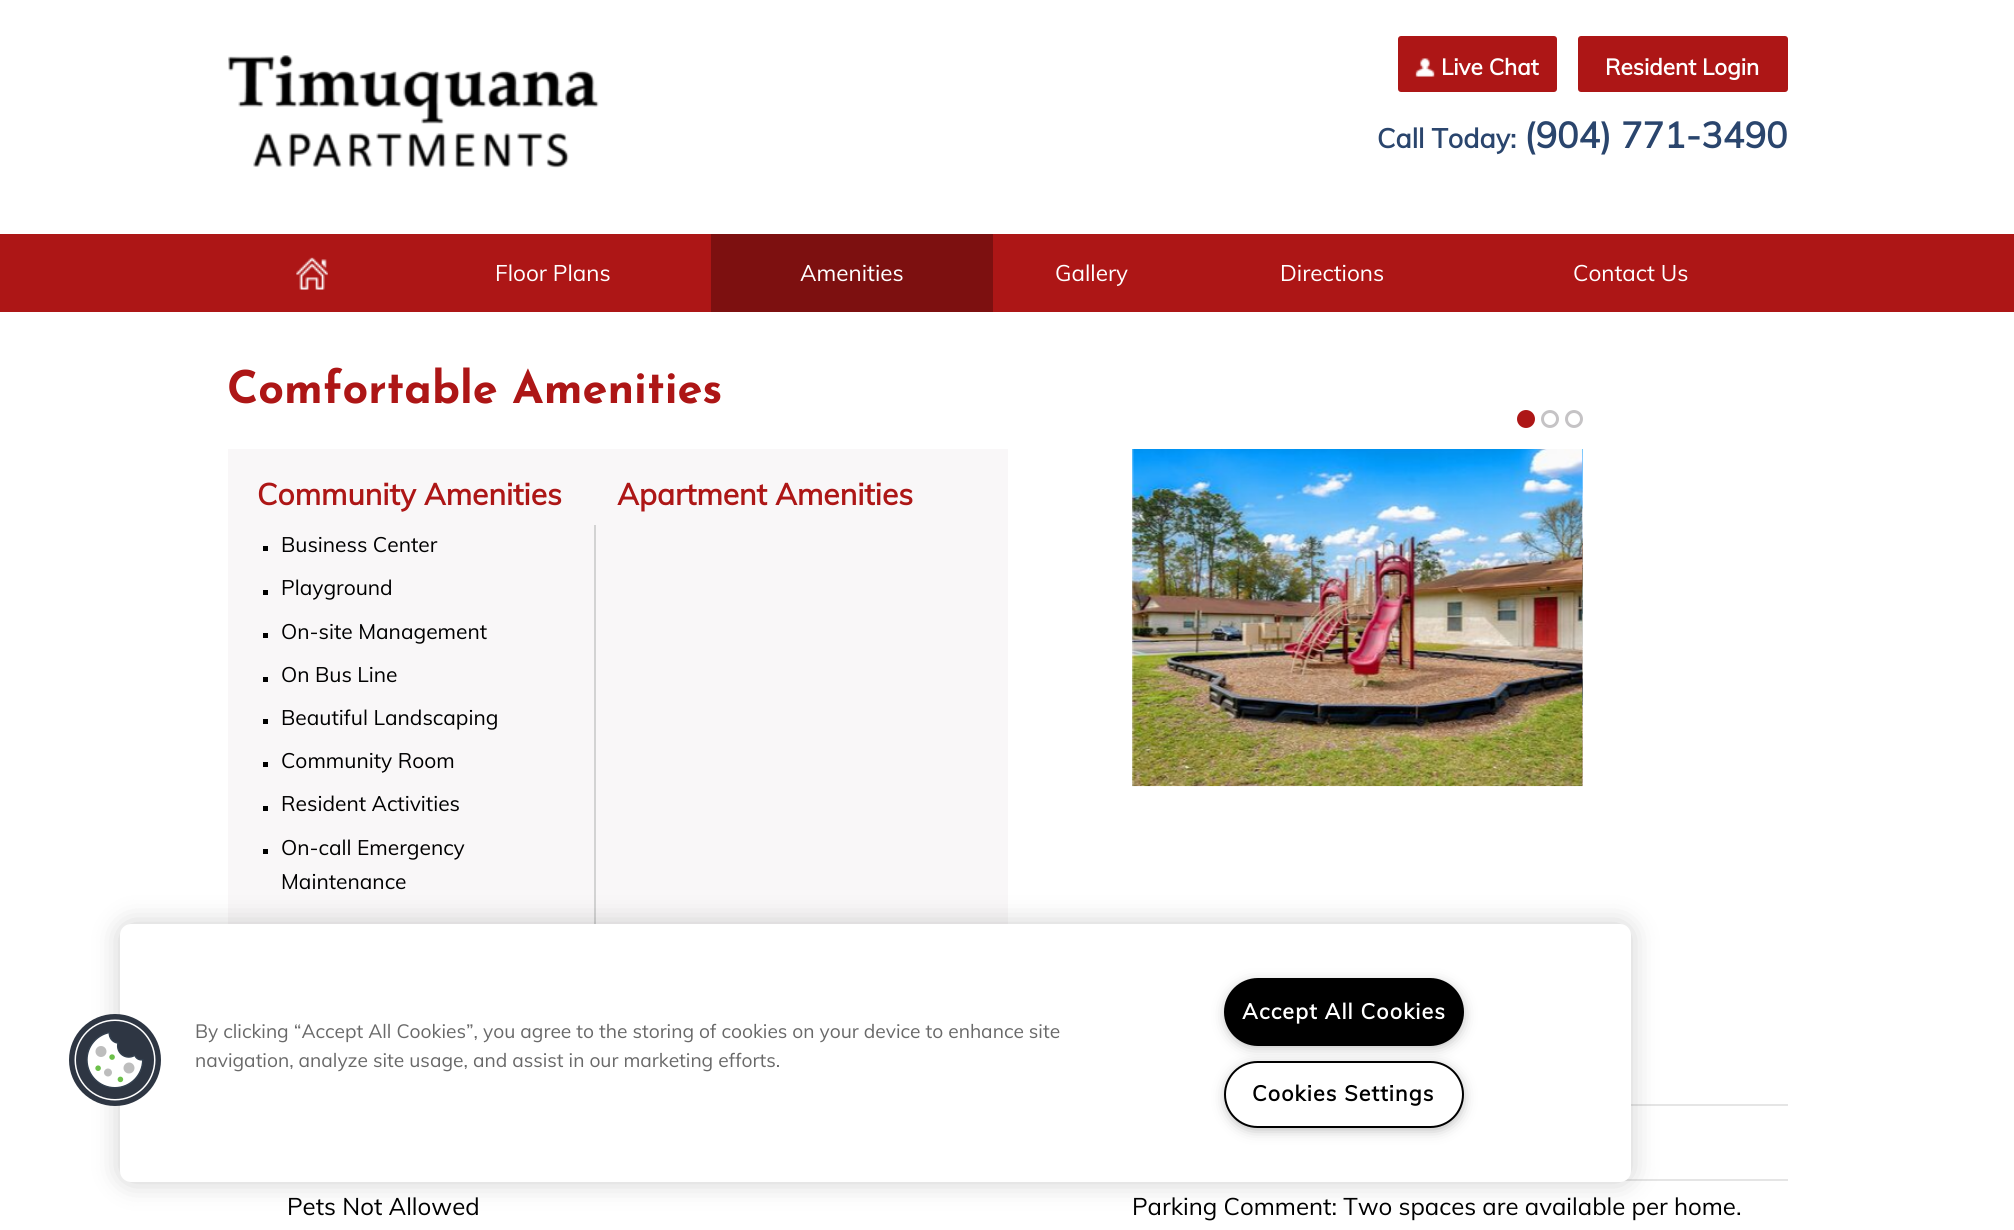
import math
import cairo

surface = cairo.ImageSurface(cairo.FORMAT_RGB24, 2014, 1230)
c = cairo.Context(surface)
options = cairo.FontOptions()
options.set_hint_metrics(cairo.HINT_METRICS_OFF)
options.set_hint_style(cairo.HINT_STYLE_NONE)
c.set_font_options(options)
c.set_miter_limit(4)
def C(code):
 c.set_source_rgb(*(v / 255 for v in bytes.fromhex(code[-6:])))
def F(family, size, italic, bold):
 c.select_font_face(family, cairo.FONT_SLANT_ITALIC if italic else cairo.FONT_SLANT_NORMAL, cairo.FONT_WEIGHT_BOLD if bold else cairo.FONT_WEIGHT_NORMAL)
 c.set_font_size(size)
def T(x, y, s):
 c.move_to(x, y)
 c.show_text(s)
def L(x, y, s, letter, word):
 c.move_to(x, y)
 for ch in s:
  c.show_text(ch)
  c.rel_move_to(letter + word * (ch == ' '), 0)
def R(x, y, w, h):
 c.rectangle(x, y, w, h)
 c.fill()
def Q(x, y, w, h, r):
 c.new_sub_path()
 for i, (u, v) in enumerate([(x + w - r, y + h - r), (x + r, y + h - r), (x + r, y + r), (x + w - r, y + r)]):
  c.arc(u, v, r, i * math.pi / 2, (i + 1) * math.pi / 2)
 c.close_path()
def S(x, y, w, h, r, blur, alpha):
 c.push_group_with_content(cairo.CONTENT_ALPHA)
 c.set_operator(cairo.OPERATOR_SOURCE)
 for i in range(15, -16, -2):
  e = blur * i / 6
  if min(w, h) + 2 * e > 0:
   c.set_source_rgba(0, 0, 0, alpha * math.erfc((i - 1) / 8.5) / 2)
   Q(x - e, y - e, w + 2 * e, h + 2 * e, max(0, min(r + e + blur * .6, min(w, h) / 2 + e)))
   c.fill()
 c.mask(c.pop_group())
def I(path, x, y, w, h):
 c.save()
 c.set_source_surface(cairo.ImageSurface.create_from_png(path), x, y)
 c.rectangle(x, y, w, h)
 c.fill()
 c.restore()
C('ffffff')
c.paint()
I('1.png',228,55,371,113)
C('ad1616')
Q(1398,36,159,56,3)
c.fill()
I('2.png',1415,58,20,19)
F('Muli',22.5,0,1)
C('ffffff')
T(1441,75,'Live Chat')
C('ad1616')
Q(1578,36,210,56,3)
c.fill()
C('ffffff')
T(1605,75,'Resident Login')
F('Muli',27,0,1)
C('2a456d')
T(1377,148,'Call Today:')
F('Muli',36,0,1)
T(1524,148,'(904) 771-3490')
C('ad1616')
R(0,234,2014,78)
I('3.png',296,257,32,33)
F('Muli',22.5,0,0)
C('ffffff')
T(495,281,'Floor Plans')
C('7d1010')
R(711,234,282,78)
C('ffffff')
T(800,281,'Amenities')
T(1055,281,'Gallery')
T(1280,281,'Directions')
T(1573,281,'Contact Us')
F('Josefin Sans',45,0,1)
C('ad1616')
T(227,403,'Comfortable Amenities')
C('f9f7f8')
R(228,449,780,475)
F('Muli',30,0,1)
C('ad1616')
T(257,505,'Community Amenities')
C('d3d3d3')
R(594,525,2,399)
C('000000')
R(263,546,5,5)
F('Muli',21,0,0)
T(281,552,'Business Center')
R(263,590,5,5)
T(281,595,'Playground')
R(263,633,5,5)
T(281,639,'On-site Management')
R(263,677,5,5)
T(281,682,'On Bus Line')
R(263,719,5,5)
T(281,725,'Beautiful Landscaping')
R(263,762,5,5)
T(281,768,'Community Room')
R(263,806,5,5)
T(281,811,'Resident Activities')
R(263,849,5,5)
T(281,855,'On-call Emergency')
T(281,889,'Maintenance')
F('Muli',30,0,1)
C('ad1616')
T(617,505,'Apartment Amenities')
c.new_path()
c.arc(1526,419,7.5,0,2 * math.pi)
c.fill_preserve()
c.set_line_width(3)
c.stroke()
c.arc(1550,419,7.5,0,2 * math.pi)
C('c5c3c5')
c.stroke()
c.arc(1574,419,7.5,0,2 * math.pi)
c.stroke()
I('4.png',1132,449,451,338)
I('5.png',1582,449,1,337)
C('e5e5e5')
R(1631,1104,157,2)
F('Muli',24,0,0)
C('000000')
T(287,1215,'Pets Not Allowed')
C('e5e5e5')
R(1624,1179,164,2)
C('000000')
T(1132,1215,'Parking Comment: Two spaces are available per home.')
C('000000')
S(120,924,1511,258,11,13.5,.2)
C('ffffff')
Q(120,924,1511,258,11)
c.fill()
I('6.png',69,1014,92,92)
F('Muli',19.2,0,0)
C('696969')
T(195,1038,'By clicking “Accept All Cookies”, you agree to the storing of cookies on your device to enhance site')
T(195,1067,'navigation, analyze site usage, and assist in our marketing efforts.')
C('999999')
S(1229,986,231,58,29,7.5,1)
C('000000')
Q(1225,979,238,66,33)
c.fill_preserve()
c.set_line_width(2)
c.stroke()
F('Muli',21.5,0,1)
C('ffffff')
L(1242,1019,'Accept All Cookies',1.1,0)
C('999999')
S(1229,1068,231,59,29.5,7.5,1)
C('ffffff')
Q(1225,1062,238,65,32.5)
c.fill_preserve()
C('000000')
c.stroke()
L(1252,1101,'Cookies Settings',1.1,0)
surface.write_to_png('o.png')
